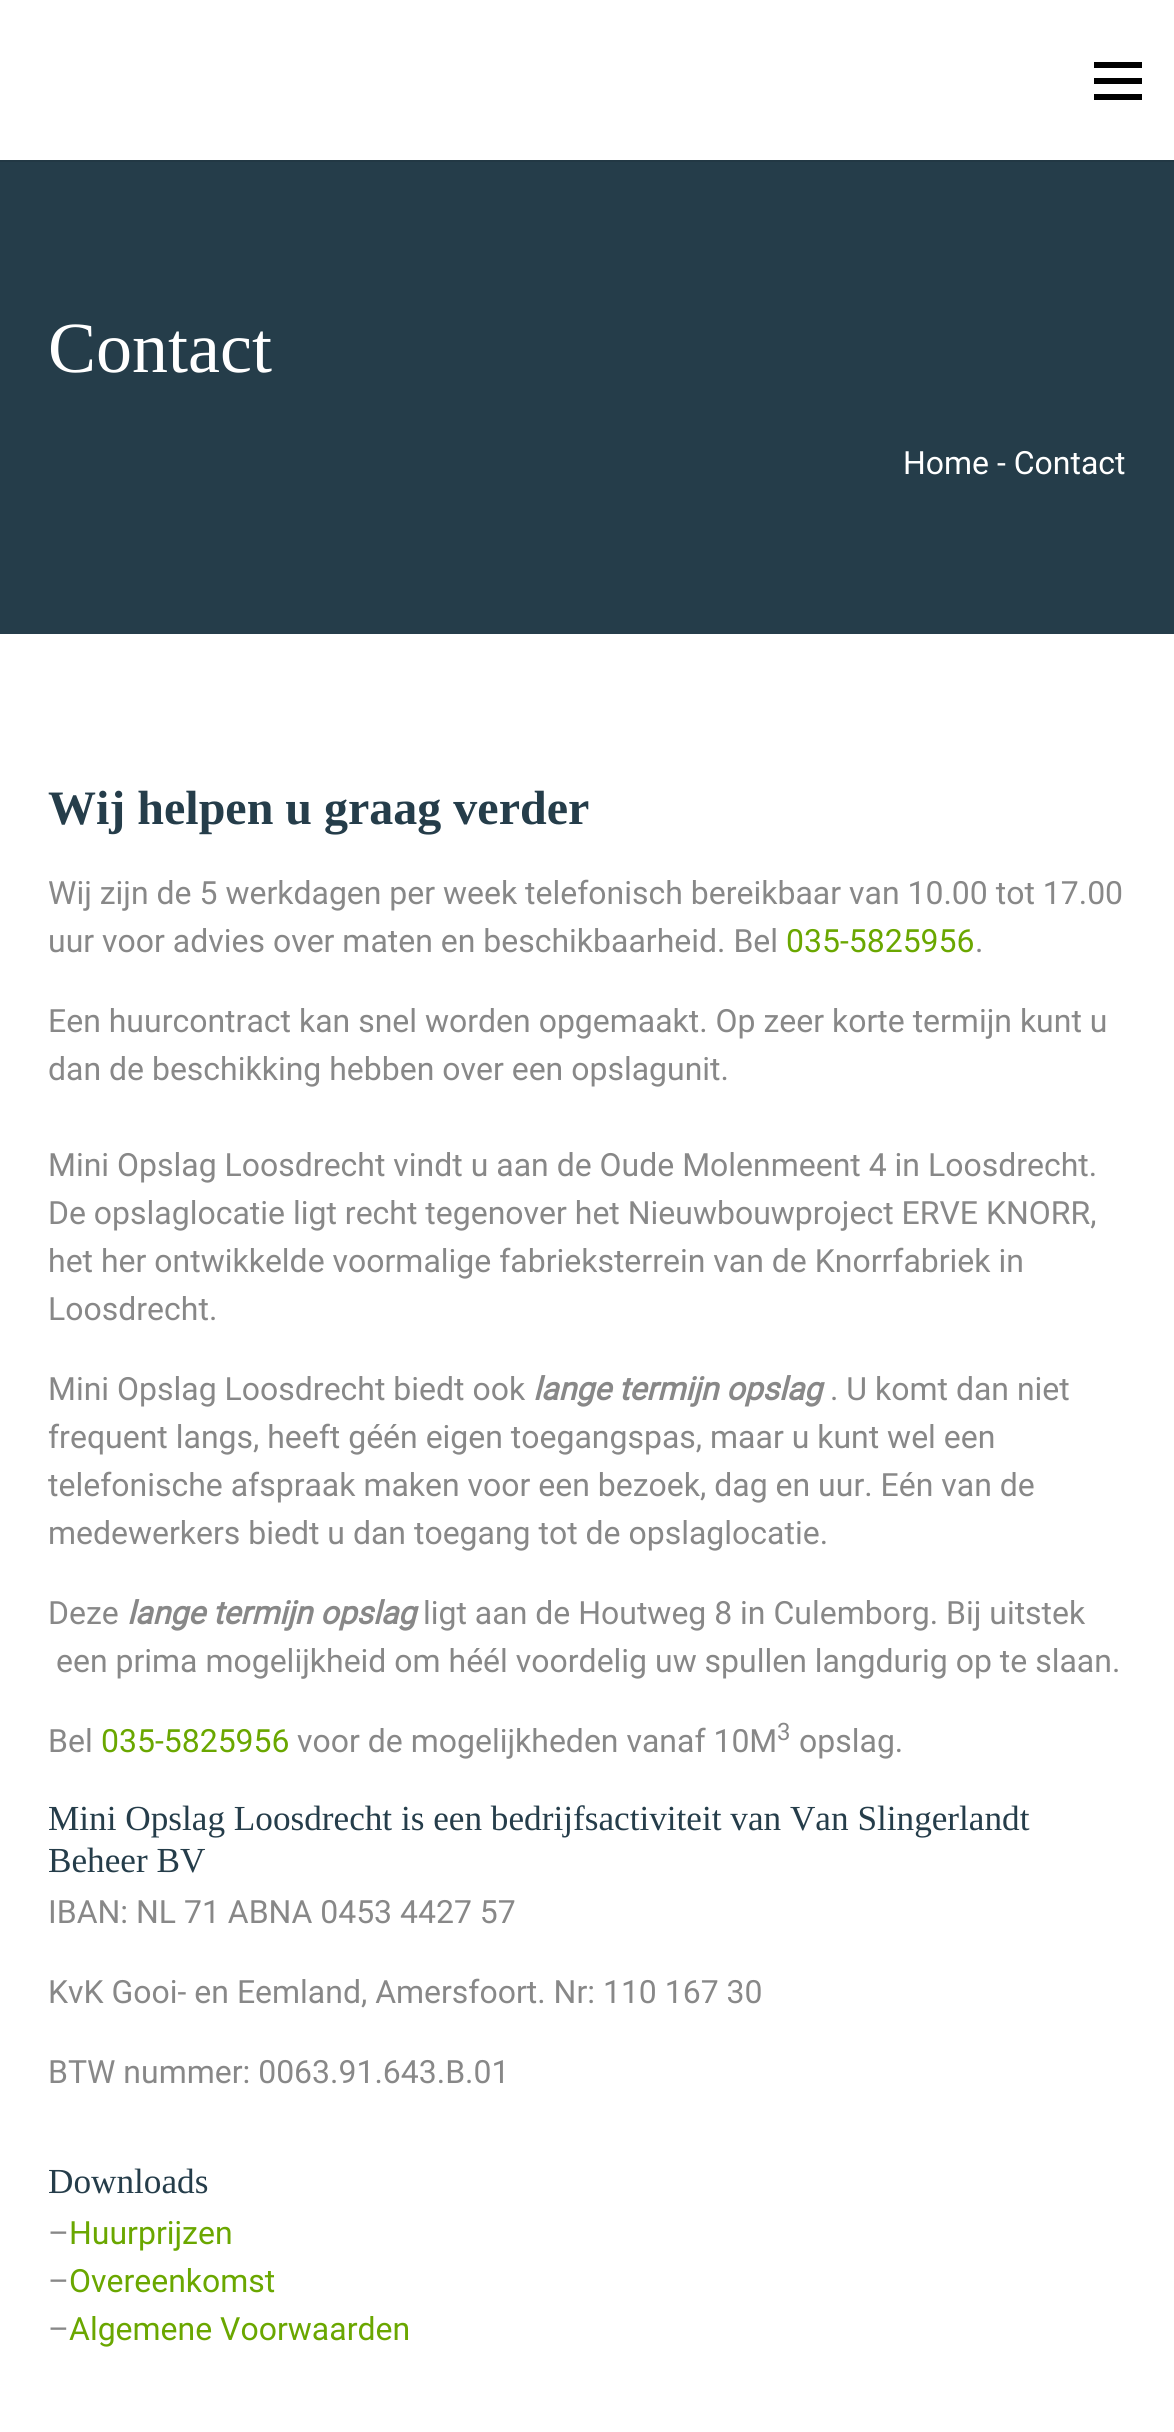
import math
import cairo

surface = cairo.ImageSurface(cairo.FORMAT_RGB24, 1174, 2432)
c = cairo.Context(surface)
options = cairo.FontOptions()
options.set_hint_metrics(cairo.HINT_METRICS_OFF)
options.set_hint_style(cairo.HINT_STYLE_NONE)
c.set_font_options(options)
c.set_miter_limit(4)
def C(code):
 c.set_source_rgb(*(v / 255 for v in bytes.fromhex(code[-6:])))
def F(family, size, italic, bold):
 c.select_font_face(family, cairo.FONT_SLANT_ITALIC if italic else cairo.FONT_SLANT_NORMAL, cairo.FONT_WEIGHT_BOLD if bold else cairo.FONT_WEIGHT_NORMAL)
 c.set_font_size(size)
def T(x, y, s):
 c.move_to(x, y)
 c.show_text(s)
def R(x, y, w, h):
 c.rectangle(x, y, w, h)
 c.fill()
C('ffffff')
c.paint()
C('223844')
R(0,160,1174,2)
C('000000')
R(1094,78,48,6)
R(1094,62,48,6)
R(1094,94,48,6)
C('253d4a')
R(0,162,1174,472)
F('Liberation Serif',72,0,0)
C('ffffff')
T(48,372,'Contact')
F('Roboto',32,0,0)
T(903,474,'Home - Contact')
F('Liberation Serif',48,0,1)
C('253d4a')
T(48,824,'Wij helpen u graag verder')
F('Roboto',32,0,0)
C('888888')
T(48,904,'Wij zijn de 5 werkdagen per week telefonisch bereikbaar van 10.00 tot 17.00')
T(48,952,'uur voor advies over maten en beschikbaarheid. Bel')
C('6aa700')
T(786,952,'035-5825956')
C('888888')
T(975,952,'.')
T(48,1032,'Een huurcontract kan snel worden opgemaakt. Op zeer korte termijn kunt u')
T(48,1080,'dan de beschikking hebben over een opslagunit.')
T(48,1176,'Mini Opslag Loosdrecht vindt u aan de Oude Molenmeent 4 in Loosdrecht.')
T(48,1224,'De opslaglocatie ligt recht tegenover het Nieuwbouwproject ERVE KNORR,')
T(48,1272,'het her ontwikkelde voormalige fabrieksterrein van de Knorrfabriek in')
T(48,1320,'Loosdrecht.')
T(48,1400,'Mini Opslag Loosdrecht biedt ook')
F('Roboto',32,1,1)
T(533,1400,'lange termijn opslag')
F('Roboto',32,0,0)
T(830,1400,'. U komt dan niet')
T(48,1448,'frequent langs, heeft géén eigen toegangspas, maar u kunt wel een')
T(48,1496,'telefonische afspraak maken voor een bezoek, dag en uur. Eén van de')
T(48,1544,'medewerkers biedt u dan toegang tot de opslaglocatie.')
T(48,1624,'Deze')
F('Roboto',32,1,1)
T(127,1624,'lange termijn opslag')
F('Roboto',32,0,0)
T(423,1624,'ligt aan de Houtweg 8 in Culemborg. Bij uitstek')
T(56,1672,'een prima mogelijkheid om héél voordelig uw spullen langdurig op te slaan.')
T(48,1752,'Bel')
C('6aa700')
T(101,1752,'035-5825956')
C('888888')
T(297,1752,'voor de mogelijkheden vanaf 10M')
F('Roboto',24,0,0)
T(777,1740,'3')
F('Roboto',32,0,0)
T(799,1752,'opslag.')
F('Liberation Serif',35.2,0,0)
C('253d4a')
T(48,1830,'Mini Opslag Loosdrecht is een bedrijfsactiviteit van Van Slingerlandt')
T(48,1872,'Beheer BV')
F('Roboto',32,0,0)
C('888888')
T(48,1923,'IBAN: NL 71 ABNA 0453 4427 57')
T(48,2003,'KvK Gooi- en Eemland, Amersfoort. Nr: 110 167 30')
T(48,2083,'BTW nummer: 0063.91.643.B.01')
F('Liberation Serif',35.2,0,0)
C('253d4a')
T(48,2193,'Downloads')
F('Roboto',32,0,0)
C('888888')
T(48,2244,'–')
C('6aa700')
T(69,2244,'Huurprijzen')
C('888888')
T(48,2292,'–')
C('6aa700')
T(69,2292,'Overeenkomst')
C('888888')
T(48,2340,'–')
C('6aa700')
T(69,2340,'Algemene Voorwaarden')
surface.write_to_png('o.png')
